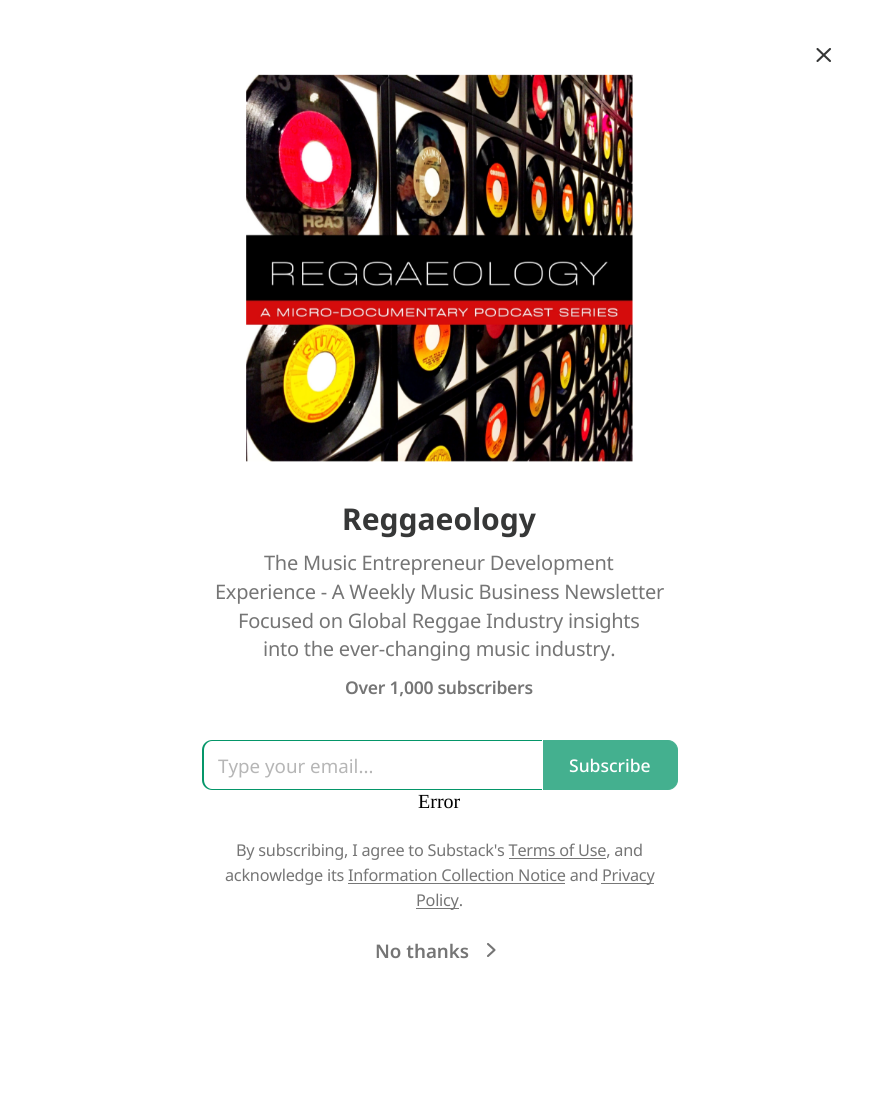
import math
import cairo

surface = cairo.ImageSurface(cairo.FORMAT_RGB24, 878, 1105)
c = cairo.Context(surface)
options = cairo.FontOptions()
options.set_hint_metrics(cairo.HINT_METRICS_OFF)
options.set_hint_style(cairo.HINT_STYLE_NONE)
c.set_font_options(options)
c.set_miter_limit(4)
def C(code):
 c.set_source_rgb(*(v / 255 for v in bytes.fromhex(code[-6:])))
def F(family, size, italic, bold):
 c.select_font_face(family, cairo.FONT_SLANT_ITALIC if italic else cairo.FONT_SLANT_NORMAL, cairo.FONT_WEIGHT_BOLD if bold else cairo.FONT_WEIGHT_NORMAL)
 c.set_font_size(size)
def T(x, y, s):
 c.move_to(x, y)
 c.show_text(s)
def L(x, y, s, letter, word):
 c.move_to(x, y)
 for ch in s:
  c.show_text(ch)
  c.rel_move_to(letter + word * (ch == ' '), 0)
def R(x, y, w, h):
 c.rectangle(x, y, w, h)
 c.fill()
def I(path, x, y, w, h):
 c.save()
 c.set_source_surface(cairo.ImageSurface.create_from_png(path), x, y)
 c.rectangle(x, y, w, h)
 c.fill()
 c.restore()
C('ffffff')
c.paint()
c.new_path()
c.move_to(830,49)
c.line_to(817.5,61)
c.move_to(817.5,49)
c.line_to(830,61)
C('363737')
c.set_line_width(2.1)
c.set_line_cap(cairo.LINE_CAP_ROUND)
c.set_line_join(cairo.LINE_JOIN_ROUND)
c.stroke()
I('1.png',246,74,387,388)
F('Noto Sans',30,0,1)
T(342,530,'Reggaeology')
F('Noto Sans',20,0,0)
C('757575')
L(264,570,'The Music Entrepreneur Development',-.25,0)
L(215,599,'Experience - A Weekly Music Business Newsletter',-.25,0)
L(238,628,'Focused on Global Reggae Industry insights',-.25,0)
L(263,656,'into the ever-changing music industry.',-.25,0)
F('Noto Sans SemiBold',17.5,0,0)
L(345,694,'Over 1,000 subscribers',-.25,0)
C('059669')
c.set_fill_rule(cairo.FILL_RULE_EVEN_ODD)
c.new_path()
c.move_to(212,740)
c.line_to(542,740)
c.line_to(542,790)
c.line_to(212,790)
c.curve_to(207,790,202,786,202,780)
c.line_to(202,750)
c.curve_to(202,744,207,740,212,740)
c.close_path()
c.move_to(212,741)
c.line_to(542,741)
c.line_to(542,789)
c.line_to(212,789)
c.curve_to(208,789,204,785,204,780)
c.line_to(204,750)
c.curve_to(204,745,208,741,212,741)
c.close_path()
c.fill()
F('Noto Sans',18.75,0,0)
C('b6b6b6')
T(218,773,'Type your email...')
C('44b08f')
c.new_path()
c.move_to(543.5,740.5)
c.line_to(668,740.5)
c.curve_to(673,740.5,677.5,745,677.5,750)
c.line_to(677.5,780)
c.curve_to(677.5,785,673,789.5,668,789.5)
c.line_to(543.5,789.5)
c.close_path()
c.fill_preserve()
c.set_line_width(1)
c.set_line_cap(cairo.LINE_CAP_BUTT)
c.set_line_join(cairo.LINE_JOIN_MITER)
c.stroke()
F('Noto Sans Medium',17.5,0,0)
C('ffffff')
T(569,772,'Subscribe')
F('Liberation Serif',20,0,0)
C('000000')
T(418,808,'Error')
F('Noto Sans',16.25,0,0)
C('757575')
L(236,856,'By subscribing, I agree to Substack\'s Terms of Use, and',-.25,0)
C('777777')
R(509,858,97,1)
C('757575')
L(225,881,'acknowledge its Information Collection Notice and',-.25,0)
C('777777')
R(601,883,53,1)
C('757575')
L(602,881,'Privacy',-.25,0)
C('777777')
R(348,883,217,1)
R(416,908,43,1)
C('757575')
L(416,906,'Policy.',-.25,0)
F('Noto Sans SemiBold',18.75,0,0)
T(375,958,'No thanks')
c.new_path()
c.move_to(488,956)
c.line_to(494.5,950)
c.line_to(488,944)
c.set_line_width(2.1)
c.set_line_cap(cairo.LINE_CAP_ROUND)
c.set_line_join(cairo.LINE_JOIN_ROUND)
c.stroke()
surface.write_to_png('o.png')
